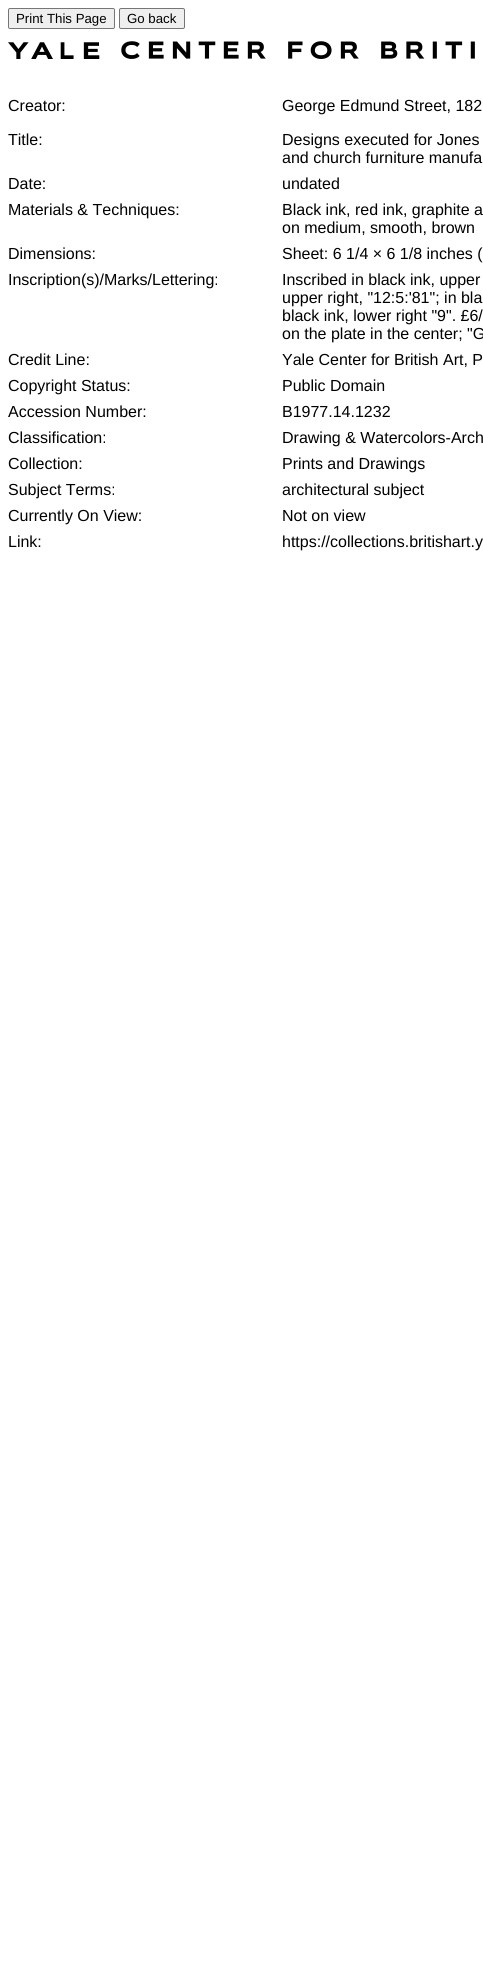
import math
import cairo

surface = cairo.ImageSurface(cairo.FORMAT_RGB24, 483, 1965)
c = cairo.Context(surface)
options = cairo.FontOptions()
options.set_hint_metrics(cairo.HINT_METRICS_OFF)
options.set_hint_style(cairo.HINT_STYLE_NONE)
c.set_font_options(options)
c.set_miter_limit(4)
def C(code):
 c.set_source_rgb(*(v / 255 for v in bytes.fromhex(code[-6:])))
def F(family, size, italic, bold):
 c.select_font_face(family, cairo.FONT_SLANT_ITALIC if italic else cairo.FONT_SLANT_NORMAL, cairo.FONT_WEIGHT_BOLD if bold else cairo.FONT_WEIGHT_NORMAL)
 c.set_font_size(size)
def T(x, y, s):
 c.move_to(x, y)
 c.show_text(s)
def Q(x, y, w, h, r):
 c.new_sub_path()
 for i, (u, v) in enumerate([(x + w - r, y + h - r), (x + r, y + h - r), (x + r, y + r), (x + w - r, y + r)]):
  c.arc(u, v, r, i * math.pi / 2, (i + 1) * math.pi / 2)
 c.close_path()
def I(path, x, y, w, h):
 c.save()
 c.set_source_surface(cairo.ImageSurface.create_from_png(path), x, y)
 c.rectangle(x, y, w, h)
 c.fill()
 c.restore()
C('ffffff')
c.paint()
C('efefef')
Q(8.5,8.5,106,20,1.5)
c.fill_preserve()
C('767676')
c.set_line_width(1)
c.stroke()
F('Liberation Sans',13.25,0,0)
C('000000')
T(16,23,'Print This Page')
C('efefef')
Q(119.5,8.5,65,20,1.5)
c.fill_preserve()
C('767676')
c.stroke()
C('000000')
T(127,23,'Go back')
I('1.png',8,41,467,18)
F('Liberation Sans',16,0,0)
T(8,111,'Creator:')
T(282,111,'George Edmund Street, 182')
T(8,145,'Title:')
T(282,145,'Designs executed for Jones')
T(282,163,'and church furniture manufa')
T(8,189,'Date:')
T(282,189,'undated')
T(8,215,'Materials & Techniques:')
T(282,215,'Black ink, red ink, graphite a')
T(282,233,'on medium, smooth, brown')
T(8,259,'Dimensions:')
T(282,259,'Sheet: 6 1/4 × 6 1/8 inches (')
T(8,285,'Inscription(s)/Marks/Lettering:')
T(282,285,'Inscribed in black ink, upper')
T(282,303,'upper right, "12:5:\'81"; in bla')
T(282,321,'black ink, lower right "9". £6/')
T(282,339,'on the plate in the center; "G')
T(8,365,'Credit Line:')
T(282,365,'Yale Center for British Art, P')
T(8,391,'Copyright Status:')
T(282,391,'Public Domain')
T(8,417,'Accession Number:')
T(282,417,'B1977.14.1232')
T(8,443,'Classification:')
T(282,443,'Drawing & Watercolors-Arch')
T(8,469,'Collection:')
T(282,469,'Prints and Drawings')
T(8,495,'Subject Terms:')
T(282,495,'architectural subject')
T(8,521,'Currently On View:')
T(282,521,'Not on view')
T(8,547,'Link:')
T(282,547,'https://collections.britishart.y')
surface.write_to_png('o.png')
